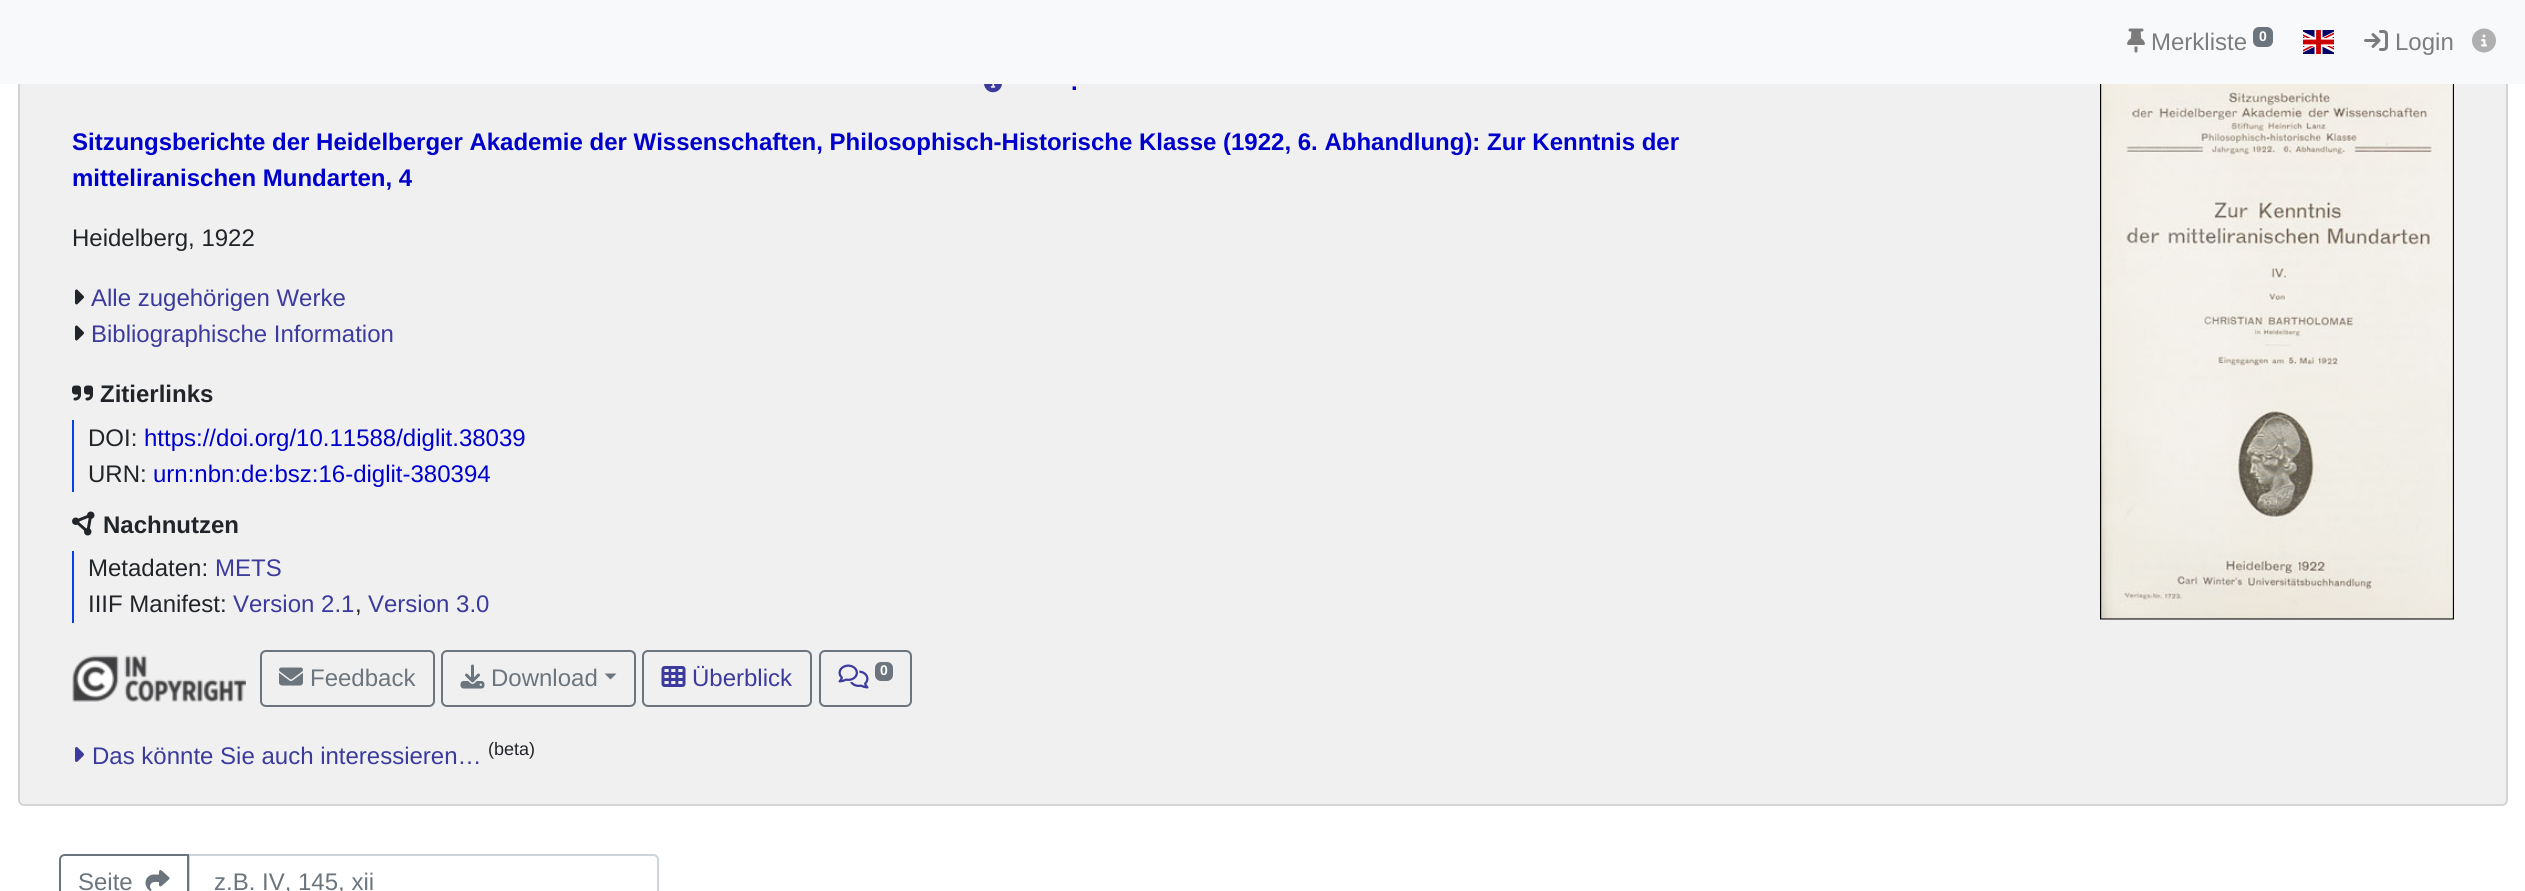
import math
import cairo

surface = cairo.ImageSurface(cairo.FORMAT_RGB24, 2525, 891)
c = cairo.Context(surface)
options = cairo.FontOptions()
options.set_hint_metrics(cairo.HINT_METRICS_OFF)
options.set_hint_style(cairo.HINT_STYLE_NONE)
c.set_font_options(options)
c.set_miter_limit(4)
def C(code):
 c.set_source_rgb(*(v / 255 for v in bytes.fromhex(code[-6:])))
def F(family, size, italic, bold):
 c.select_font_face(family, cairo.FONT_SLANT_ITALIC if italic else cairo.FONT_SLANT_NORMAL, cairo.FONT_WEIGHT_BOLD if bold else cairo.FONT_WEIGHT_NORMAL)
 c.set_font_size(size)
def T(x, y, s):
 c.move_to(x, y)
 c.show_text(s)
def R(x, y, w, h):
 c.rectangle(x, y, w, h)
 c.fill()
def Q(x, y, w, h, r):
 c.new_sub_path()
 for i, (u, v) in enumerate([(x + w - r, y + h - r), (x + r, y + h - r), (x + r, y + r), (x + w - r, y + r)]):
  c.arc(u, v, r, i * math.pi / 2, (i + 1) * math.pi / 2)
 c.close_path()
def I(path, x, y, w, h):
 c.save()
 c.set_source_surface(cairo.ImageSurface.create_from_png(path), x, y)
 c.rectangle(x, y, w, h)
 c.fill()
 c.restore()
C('ffffff')
c.paint()
C('f0f0f0')
Q(18,33,2490,773,6)
c.fill()
Q(19,34,2488,771,5)
c.set_source_rgba(0,0,0,0.12)
c.stroke()
C('f8f9fa')
R(0,0,2525,84)
I('1.png',2127,28,18,25)
F('Liberation Sans',24,0,0)
C('7c7d7d')
T(2151,50,'Merkliste')
C('6c757d')
Q(2253,27,20,20,6)
c.fill()
F('Liberation Sans',14,0,1)
C('ffffff')
T(2259,41,'0')
I('2.png',2303,30,31,24)
I('3.png',2364,30,24,21)
F('Liberation Sans',24,0,0)
C('7c7d7d')
T(2395,50,'Login')
I('4.png',2472,28,24,25)
I('5.png',984,84,18,9)
F('Liberation Sans',24,0,1)
C('0000cc')
T(1071,90,'.')
T(72,150,'Sitzungsberichte der Heidelberger Akademie der Wissenschaften, Philosophisch-Historische Klasse (1922, 6. Abhandlung): Zur Kenntnis der')
T(72,186,'mitteliranischen Mundarten, 4')
F('Liberation Sans',24,0,0)
C('212529')
T(72,246,'Heidelberg, 1922')
I('6.png',75,289,9,16)
C('3c3b9d')
T(91,306,'Alle zugehörigen Werke')
I('6.png',75,325,9,16)
T(91,342,'Bibliographische Information')
I('7.png',72,385,21,16)
F('Liberation Sans',24,0,1)
C('212529')
T(100,402,'Zitierlinks')
C('0542e1')
R(72,420,2,72)
F('Liberation Sans',24,0,0)
C('212529')
T(88,446,'DOI:')
C('0000cc')
T(144,446,'https://doi.org/10.11588/diglit.38039')
C('212529')
T(88,482,'URN:')
C('0000cc')
T(153,482,'urn:nbn:de:bsz:16-diglit-380394')
I('8.png',72,511,23,25)
F('Liberation Sans',24,0,1)
C('212529')
T(103,533,'Nachnutzen')
C('0542e1')
R(72,551,2,72)
F('Liberation Sans',24,0,0)
C('212529')
T(88,576,'Metadaten:')
C('3c3b9d')
T(215,576,'METS')
C('212529')
T(88,612,'IIIF Manifest:')
C('3c3b9d')
T(233,612,'Version 2.1')
C('212529')
T(355,612,',')
C('3c3b9d')
T(368,612,'Version 3.0')
I('9.png',2100,84,354,536)
I('10.png',72,655,174,47)
Q(261,651,173,55,5)
C('6c757d')
c.stroke()
I('11.png',279,667,24,19)
T(310,686,'Feedback')
Q(442,651,193,55,5)
c.stroke()
I('12.png',460,664,25,25)
T(491,686,'Download')
c.new_path()
c.move_to(604.5,673.5)
c.line_to(616.5,673.5)
c.line_to(610.5,679.5)
c.close_path()
c.fill()
Q(643,651,168,55,5)
c.stroke()
I('13.png',661,666,25,21)
C('3c3b9d')
T(692,686,'Überblick')
Q(820,651,91,55,5)
C('6c757d')
c.stroke()
I('14.png',838,664,31,25)
Q(875,662,18,19,6)
c.fill()
F('Liberation Sans',14,0,1)
C('ffffff')
T(880,675,'0')
I('15.png',75,747,9,15)
F('Liberation Sans',24,0,0)
C('3c3b9d')
T(92,764,'Das könnte Sie auch interessieren…')
F('Liberation Sans',18,0,0)
C('212529')
T(488,755,'(beta)')
c.new_path()
c.move_to(189,855)
c.line_to(653,855)
c.curve_to(656,855,658,857,658,860)
c.line_to(658,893)
c.curve_to(658,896,656,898,653,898)
c.line_to(189,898)
c.close_path()
C('ced4da')
c.stroke()
c.new_path()
c.move_to(65,855)
c.line_to(188,855)
c.line_to(188,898)
c.line_to(65,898)
c.curve_to(62,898,60,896,60,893)
c.line_to(60,860)
c.curve_to(60,857,62,855,65,855)
c.close_path()
C('6c757d')
c.stroke()
F('Liberation Sans',24,0,0)
T(78,890,'Seite')
I('16.png',145,870,25,21)
T(214,890,'z.B. IV, 145, xii')
surface.write_to_png('o.png')
